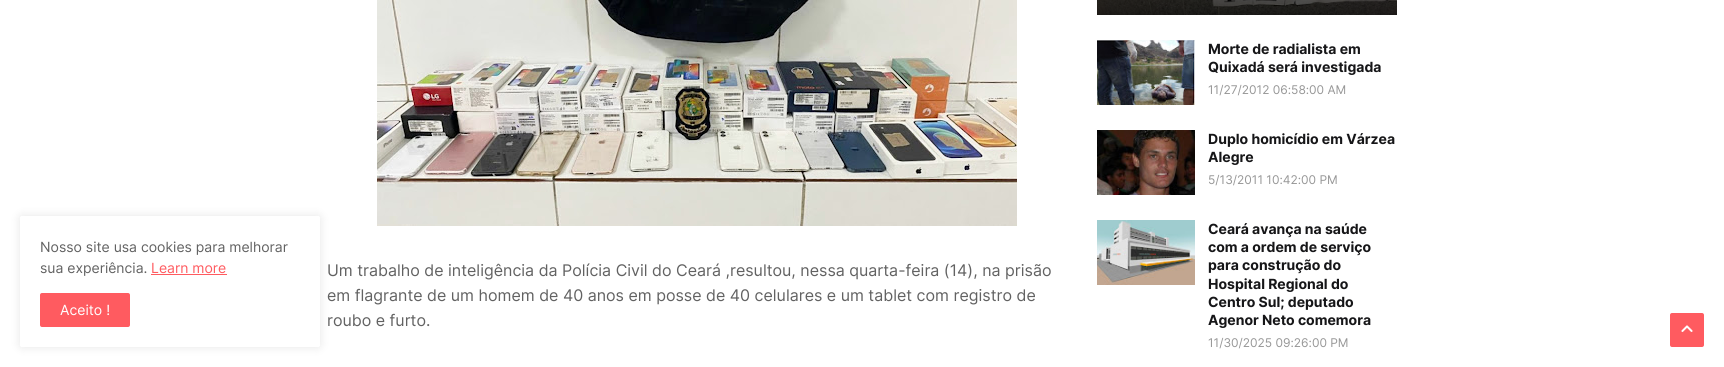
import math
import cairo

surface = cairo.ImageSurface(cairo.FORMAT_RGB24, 1724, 367)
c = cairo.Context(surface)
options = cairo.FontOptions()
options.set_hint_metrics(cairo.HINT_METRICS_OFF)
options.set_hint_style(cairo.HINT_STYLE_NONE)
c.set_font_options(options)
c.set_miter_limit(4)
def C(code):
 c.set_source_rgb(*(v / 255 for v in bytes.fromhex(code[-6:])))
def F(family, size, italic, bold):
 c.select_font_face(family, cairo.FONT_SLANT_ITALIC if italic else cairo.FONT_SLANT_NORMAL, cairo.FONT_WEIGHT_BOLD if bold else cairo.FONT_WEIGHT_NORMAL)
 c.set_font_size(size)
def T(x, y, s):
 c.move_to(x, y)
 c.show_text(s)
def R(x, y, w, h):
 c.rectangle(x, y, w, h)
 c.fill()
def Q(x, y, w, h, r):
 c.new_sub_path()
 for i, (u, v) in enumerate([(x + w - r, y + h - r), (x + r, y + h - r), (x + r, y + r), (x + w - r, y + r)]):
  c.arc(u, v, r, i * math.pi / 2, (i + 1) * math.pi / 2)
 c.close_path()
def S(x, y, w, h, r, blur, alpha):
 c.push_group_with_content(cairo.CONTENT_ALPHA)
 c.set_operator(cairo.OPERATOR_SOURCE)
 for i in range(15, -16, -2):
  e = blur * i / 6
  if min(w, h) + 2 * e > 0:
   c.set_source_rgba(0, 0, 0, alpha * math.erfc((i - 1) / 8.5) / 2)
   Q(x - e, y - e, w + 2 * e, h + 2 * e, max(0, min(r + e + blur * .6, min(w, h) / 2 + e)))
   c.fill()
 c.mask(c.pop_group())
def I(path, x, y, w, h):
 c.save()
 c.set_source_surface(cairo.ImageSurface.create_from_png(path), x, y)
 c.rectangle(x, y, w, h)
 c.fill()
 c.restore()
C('ffffff')
c.paint()
c.save()
c.set_fill_rule(cairo.FILL_RULE_EVEN_ODD)
c.new_path()
c.move_to(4,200)
c.line_to(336,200)
c.line_to(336,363)
c.line_to(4,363)
c.close_path()
c.move_to(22,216)
c.line_to(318,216)
c.curve_to(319,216,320,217,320,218)
c.line_to(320,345)
c.curve_to(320,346,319,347,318,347)
c.line_to(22,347)
c.curve_to(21,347,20,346,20,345)
c.line_to(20,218)
c.curve_to(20,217,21,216,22,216)
c.close_path()
c.clip()
C('000000')
S(20,216,300,131,2,5,.1)
c.restore()
F('Inter',14,0,0)
C('626262')
T(40,252,'Nosso site usa cookies para melhorar')
T(40,273,'sua experiência.')
C('ff5b60')
T(151,273,'Learn more')
R(151,274,76,1)
Q(40,293,90,34,2)
c.fill()
C('ffffff')
T(60,315,'Aceito !')
I('1.png',377,0,640,226)
F('Inter',16,0,0)
C('626262')
T(327,276,'Um trabalho de inteligência da Polícia Civil do Ceará ,resultou, nessa quarta-feira (14), na prisão')
T(327,301,'em flagrante de um homem de 40 anos em posse de 40 celulares e um tablet com registro de')
T(327,326,'roubo e furto.')
I('2.png',1097,0,300,15)
I('3.png',1097,40,98,65)
F('Inter',14,0,1)
C('161618')
T(1208,54,'Morte de radialista em')
T(1208,72,'Quixadá será investigada')
F('Inter',12,0,0)
C('979797')
T(1208,94,'11/27/2012 06:58:00 AM')
I('4.png',1097,130,98,65)
F('Inter',14,0,1)
C('161618')
T(1208,144,'Duplo homicídio em Várzea')
T(1208,162,'Alegre')
F('Inter',12,0,0)
C('979797')
T(1208,184,'5/13/2011 10:42:00 PM')
I('5.png',1097,220,98,65)
F('Inter',14,0,1)
C('161618')
T(1208,234,'Ceará avança na saúde')
T(1208,252,'com a ordem de serviço')
T(1208,270,'para construção do')
T(1208,289,'Hospital Regional do')
T(1208,307,'Centro Sul; deputado')
T(1208,325,'Agenor Neto comemora')
F('Inter',12,0,0)
C('979797')
T(1208,347,'11/30/2025 09:26:00 PM')
C('ff5b60')
Q(1670,313,34,34,2)
c.fill()
I('6.png',1681,325,12,7)
surface.write_to_png('o.png')
